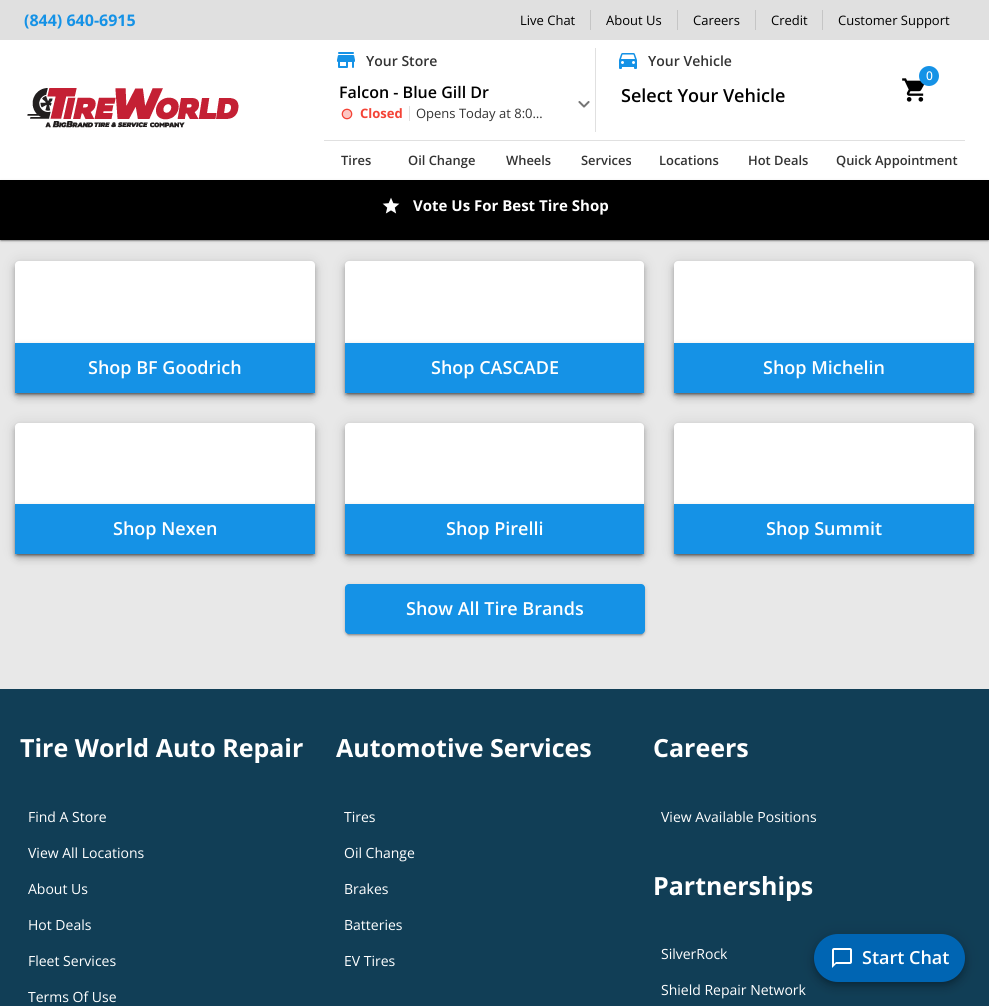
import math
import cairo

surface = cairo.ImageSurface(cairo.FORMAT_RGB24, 989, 1006)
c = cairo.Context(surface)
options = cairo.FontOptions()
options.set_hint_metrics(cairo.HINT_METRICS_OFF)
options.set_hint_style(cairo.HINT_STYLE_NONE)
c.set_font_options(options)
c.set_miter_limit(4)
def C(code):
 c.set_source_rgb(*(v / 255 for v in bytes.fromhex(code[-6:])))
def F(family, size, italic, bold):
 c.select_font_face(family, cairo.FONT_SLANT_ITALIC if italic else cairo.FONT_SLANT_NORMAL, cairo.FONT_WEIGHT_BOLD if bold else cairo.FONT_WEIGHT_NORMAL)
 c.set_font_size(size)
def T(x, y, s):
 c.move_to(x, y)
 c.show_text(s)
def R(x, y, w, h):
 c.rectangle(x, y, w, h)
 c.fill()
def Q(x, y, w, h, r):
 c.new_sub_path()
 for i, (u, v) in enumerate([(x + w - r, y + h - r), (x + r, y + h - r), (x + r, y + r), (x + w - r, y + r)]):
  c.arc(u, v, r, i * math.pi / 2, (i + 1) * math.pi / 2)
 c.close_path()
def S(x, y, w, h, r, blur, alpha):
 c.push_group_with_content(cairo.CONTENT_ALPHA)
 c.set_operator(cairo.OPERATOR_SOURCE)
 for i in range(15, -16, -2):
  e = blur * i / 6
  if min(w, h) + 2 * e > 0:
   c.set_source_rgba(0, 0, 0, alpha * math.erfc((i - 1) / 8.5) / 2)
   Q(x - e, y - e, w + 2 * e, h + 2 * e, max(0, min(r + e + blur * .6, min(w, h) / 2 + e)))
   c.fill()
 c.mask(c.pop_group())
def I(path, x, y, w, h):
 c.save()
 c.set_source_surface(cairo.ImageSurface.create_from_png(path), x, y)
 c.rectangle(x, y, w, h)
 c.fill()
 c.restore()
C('e8e8e8')
c.paint()
C('e0e0e0')
R(0,0,989,40)
F('Open Sans',16,0,1)
C('1592e6')
T(24,26,'(844) 640-6915')
C('c5c5c5')
R(590,10,1,20)
F('Open Sans',13,0,0)
C('000000')
T(520,25,'Live Chat')
C('c5c5c5')
R(677,10,1,20)
C('000000')
T(606,25,'About Us')
C('c5c5c5')
R(755,10,1,20)
C('000000')
T(693,25,'Careers')
C('c5c5c5')
R(822,10,1,20)
C('000000')
T(771,25,'Credit')
T(838,25,'Customer Support')
C('ffffff')
R(0,40,989,140)
I('1.png',27,88,212,40)
I('2.png',337,52,18,16)
F('Open Sans SemiBold',14,0,0)
C('333333')
T(366,66,'Your Store')
F('Open Sans SemiBold',16,0,0)
C('000000')
T(339,98,'Falcon - Blue Gill Dr')
I('3.png',341,108,12,12)
F('Open Sans',13,0,1)
C('f44336')
T(360,118,'Closed')
C('e0e0e0')
R(409,106,1,15)
F('Open Sans',13,0,0)
C('333333')
T(416,118,'Opens Today at 8:0…')
I('4.png',578,101,12,7)
C('e0e0e0')
R(595,48,1,84)
I('5.png',619,53,18,16)
F('Open Sans SemiBold',14,0,0)
C('333333')
T(648,66,'Your Vehicle')
F('Open Sans SemiBold',18,0,0)
C('000000')
T(621,102,'Select Your Vehicle')
I('6.png',902,78,23,24)
C('1592e6')
c.arc(929,76,10,0,2 * math.pi)
c.fill()
F('Open Sans Medium',12,0,0)
C('ffffff')
T(926,80,'0')
C('e0e0e0')
R(324,140,641,1)
F('Open Sans SemiBold',12.9,0,0)
C('333333')
T(341,165,'Tires')
T(408,165,'Oil Change')
T(506,165,'Wheels')
T(581,165,'Services')
T(659,165,'Locations')
T(748,165,'Hot Deals')
T(836,165,'Quick Appointment')
C('000000')
S(0,181,989,60,0,1.5,.12)
S(0,181,989,60,0,.5,.14)
S(1,183,987,58,0,.5,.2)
C('000000')
R(0,180,989,60)
I('7.png',382,197,18,17)
F('Open Sans',15,0,1)
C('ffffff')
T(413,211,'Vote Us For Best Tire Shop')
C('000000')
S(15,262,300,132,4,7,.12)
S(15,266,300,132,4,4,.14)
S(16,265,298,130,3,2.5,.2)
C('ffffff')
Q(15,261,300,132,4)
c.fill()
C('000000')
S(15,344,300,50,0,2.5,.12)
S(15,345,300,50,0,1,.14)
S(17,348,296,46,0,.5,.2)
C('1592e6')
R(15,343,300,50)
F('Open Sans SemiBold',18,0,0)
C('ffffff')
T(88,374,'Shop BF Goodrich')
C('000000')
S(345,262,299,132,4,7,.12)
S(345,266,299,132,4,4,.14)
S(346,265,297,130,3,2.5,.2)
C('ffffff')
Q(345,261,299,132,4)
c.fill()
C('000000')
S(345,344,299,50,0,2.5,.12)
S(345,345,299,50,0,1,.14)
S(347,348,295,46,0,.5,.2)
C('1592e6')
R(345,343,299,50)
C('ffffff')
T(431,374,'Shop CASCADE')
C('000000')
S(674,262,300,132,4,7,.12)
S(674,266,300,132,4,4,.14)
S(675,265,298,130,3,2.5,.2)
C('ffffff')
Q(674,261,300,132,4)
c.fill()
C('000000')
S(674,344,300,50,0,2.5,.12)
S(674,345,300,50,0,1,.14)
S(676,348,296,46,0,.5,.2)
C('1592e6')
R(674,343,300,50)
C('ffffff')
T(763,374,'Shop Michelin')
C('000000')
S(15,424,300,131,4,7,.12)
S(15,428,300,131,4,4,.14)
S(16,427,298,129,3,2.5,.2)
C('ffffff')
Q(15,423,300,131,4)
c.fill()
C('000000')
S(15,505,300,50,0,2.5,.12)
S(15,506,300,50,0,1,.14)
S(17,509,296,46,0,.5,.2)
C('1592e6')
R(15,504,300,50)
C('ffffff')
T(113,535,'Shop Nexen')
C('000000')
S(345,424,299,131,4,7,.12)
S(345,428,299,131,4,4,.14)
S(346,427,297,129,3,2.5,.2)
C('ffffff')
Q(345,423,299,131,4)
c.fill()
C('000000')
S(345,505,299,50,0,2.5,.12)
S(345,506,299,50,0,1,.14)
S(347,509,295,46,0,.5,.2)
C('1592e6')
R(345,504,299,50)
C('ffffff')
T(446,535,'Shop Pirelli')
C('000000')
S(674,424,300,131,4,7,.12)
S(674,428,300,131,4,4,.14)
S(675,427,298,129,3,2.5,.2)
C('ffffff')
Q(674,423,300,131,4)
c.fill()
C('000000')
S(674,505,300,50,0,2.5,.12)
S(674,506,300,50,0,1,.14)
S(676,509,296,46,0,.5,.2)
C('1592e6')
R(674,504,300,50)
C('ffffff')
T(766,535,'Shop Summit')
C('000000')
S(345,585,300,50,4,2.5,.12)
S(345,586,300,50,4,1,.14)
S(347,589,296,46,2,.5,.2)
C('1592e6')
Q(345,584,300,50,4)
c.fill()
C('ffffff')
T(406,615,'Show All Tire Brands')
C('113e56')
R(0,689,989,317)
F('Open Sans',25,0,1)
C('ffffff')
T(20,757,'Tire World Auto Repair')
F('Open Sans',14,0,0)
T(28,822,'Find A Store')
T(28,858,'View All Locations')
T(28,894,'About Us')
T(28,930,'Hot Deals')
T(28,966,'Fleet Services')
T(28,1002,'Terms Of Use')
F('Open Sans',25,0,1)
T(336,757,'Automotive Services')
F('Open Sans',14,0,0)
T(344,822,'Tires')
T(344,858,'Oil Change')
T(344,894,'Brakes')
T(344,930,'Batteries')
T(344,966,'EV Tires')
F('Open Sans',25,0,1)
T(653,757,'Careers')
F('Open Sans',14,0,0)
T(661,822,'View Available Positions')
F('Open Sans',25,0,1)
T(653,895,'Partnerships')
F('Open Sans',14,0,0)
T(661,959,'SilverRock')
T(661,995,'Shield Repair Network')
C('000000')
S(814,935,151,48,24,9,.12)
S(814,940,151,48,24,5,.14)
S(815,938,149,46,23,2.5,.2)
C('0065b3')
Q(814,934,151,48,24)
c.fill()
I('8.png',832,948,20,20)
F('Open Sans SemiBold',18,0,0)
C('ffffff')
T(862,964,'Start Chat')
surface.write_to_png('o.png')
